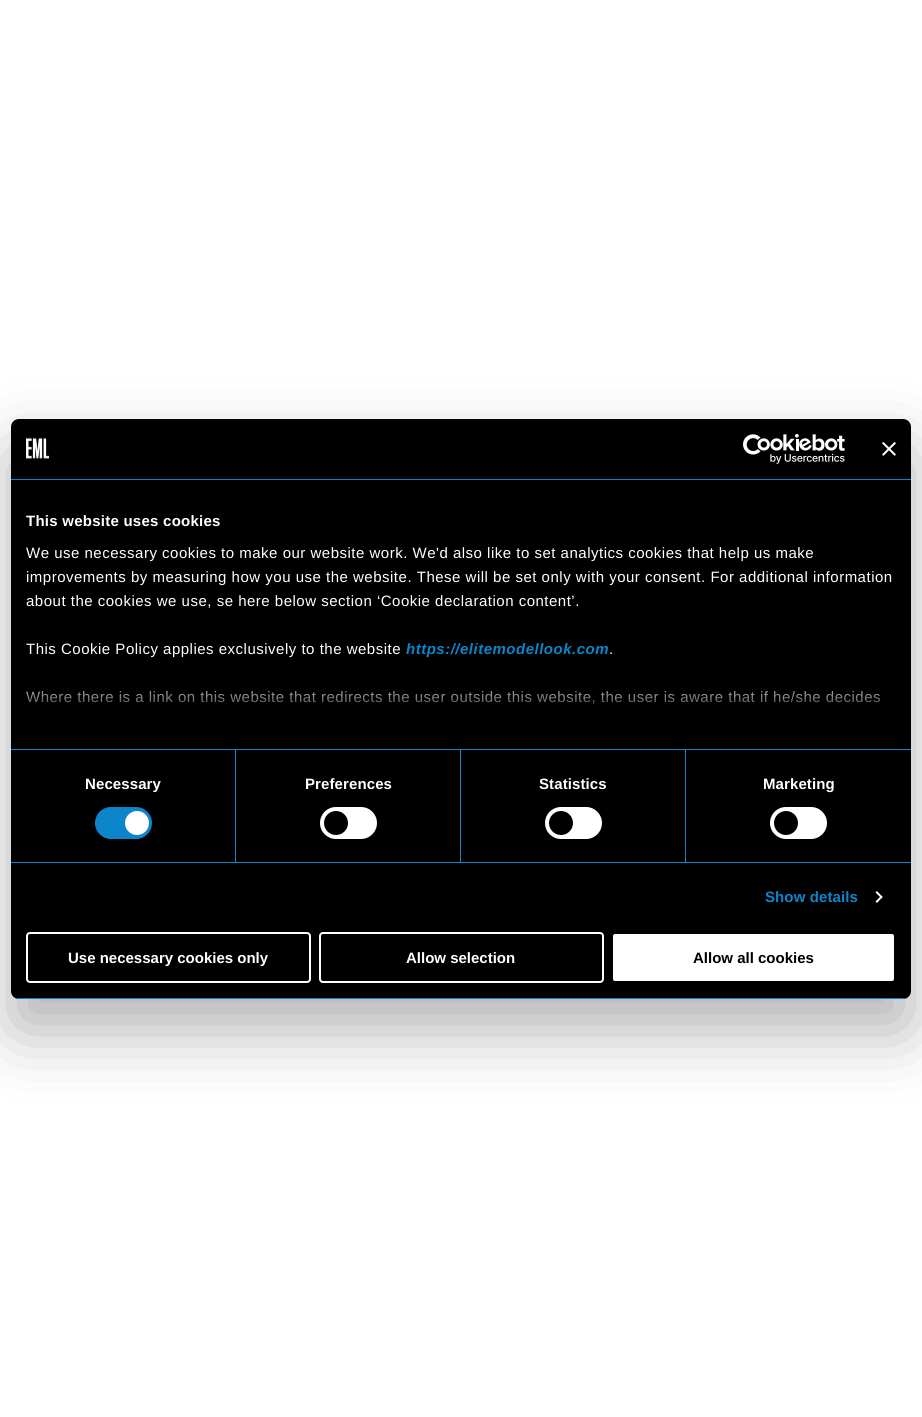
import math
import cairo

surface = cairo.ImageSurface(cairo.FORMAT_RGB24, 922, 1417)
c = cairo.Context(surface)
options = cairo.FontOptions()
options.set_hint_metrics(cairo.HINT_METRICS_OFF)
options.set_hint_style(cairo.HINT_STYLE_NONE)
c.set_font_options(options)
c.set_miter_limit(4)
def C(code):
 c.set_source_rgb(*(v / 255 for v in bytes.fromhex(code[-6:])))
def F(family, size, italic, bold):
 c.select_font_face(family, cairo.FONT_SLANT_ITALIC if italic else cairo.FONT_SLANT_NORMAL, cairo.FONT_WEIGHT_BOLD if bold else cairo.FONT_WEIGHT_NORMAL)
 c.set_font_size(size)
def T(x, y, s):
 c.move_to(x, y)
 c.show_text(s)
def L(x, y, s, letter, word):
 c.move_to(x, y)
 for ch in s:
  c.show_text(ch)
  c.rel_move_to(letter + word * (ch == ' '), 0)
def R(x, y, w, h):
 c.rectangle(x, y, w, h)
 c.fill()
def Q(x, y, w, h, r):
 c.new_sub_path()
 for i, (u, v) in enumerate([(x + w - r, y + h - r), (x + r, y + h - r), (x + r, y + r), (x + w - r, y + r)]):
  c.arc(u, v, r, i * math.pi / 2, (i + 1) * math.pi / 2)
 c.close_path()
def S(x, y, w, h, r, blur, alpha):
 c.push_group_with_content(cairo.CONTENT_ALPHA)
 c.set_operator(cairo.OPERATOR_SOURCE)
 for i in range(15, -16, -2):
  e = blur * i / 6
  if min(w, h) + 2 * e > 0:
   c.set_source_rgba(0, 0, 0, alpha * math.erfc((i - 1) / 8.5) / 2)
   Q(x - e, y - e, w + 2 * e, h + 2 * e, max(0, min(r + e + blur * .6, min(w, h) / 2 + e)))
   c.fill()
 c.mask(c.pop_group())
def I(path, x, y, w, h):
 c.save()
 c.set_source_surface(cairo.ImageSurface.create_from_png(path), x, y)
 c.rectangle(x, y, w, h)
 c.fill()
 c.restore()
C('ffffff')
c.paint()
C('000000')
S(11,451,900,580,8,34,.3)
C('000000')
Q(11,419,900,580,8)
c.fill()
C('0d85ca')
R(11,479,900,1)
I('1.png',26,437,23,22)
I('2.png',743,434,102,30)
I('3.png',882,442,14,14)
R(11,749,900,1)
F('Liberation Sans',15,0,1)
C('ffffff')
L(26,526,'This website uses cookies',.25,0)
F('Liberation Sans',15,0,0)
L(26,558,'We use necessary cookies to make our website work. We\'d also like to set analytics cookies that help us make',.5,0)
L(26,582,'improvements by measuring how you use the website. These will be set only with your consent. For additional information',.5,0)
L(26,606,'about the cookies we use, se here below section ‘Cookie declaration content’.',.5,0)
L(26,654,'This Cookie Policy applies exclusively to the website',.5,0)
F('Liberation Sans',15,1,1)
C('0d85ca')
L(406,654,'https://elitemodellook.com',.5,0)
F('Liberation Sans',15,0,0)
C('ffffff')
L(609,654,'.',.5,0)
L(26,702,'Where there is a link on this website that redirects the user outside this website, the user is aware that if he/she decides',.5,0)
gradient = cairo.LinearGradient(455,749,455,674)
gradient.add_color_stop_rgba(0,0,0,0,1)
gradient.add_color_stop_rgba(.5,0,0,0,.8)
gradient.add_color_stop_rgba(1,0,0,0,0)
c.set_source(gradient)
R(26,691,854,13)
C('0d85ca')
R(11,862,900,1)
R(235,750,1,112)
F('Liberation Sans',15,0,1)
C('ffffff')
L(85,789,'Necessary',.1,0)
C('0d85ca')
Q(95,807,57,32,16)
c.fill()
C('ffffff')
c.arc(137,823,12,0,2 * math.pi)
c.fill()
C('0d85ca')
R(460,750,1,112)
C('ffffff')
L(305,789,'Preferences',.1,0)
Q(320,807,57,32,16)
c.fill()
C('000000')
c.arc(336,823,12,0,2 * math.pi)
c.fill()
C('0d85ca')
R(685,750,1,112)
C('ffffff')
L(539,789,'Statistics',.1,0)
Q(545,807,57,32,16)
c.fill()
C('000000')
c.arc(561,823,12,0,2 * math.pi)
c.fill()
C('ffffff')
L(763,789,'Marketing',.1,0)
Q(770,807,57,32,16)
c.fill()
C('000000')
c.arc(786,823,12,0,2 * math.pi)
c.fill()
C('0d85ca')
L(765,902,'Show details',.1,0)
C('ffffff')
c.new_path()
c.move_to(877,891)
c.line_to(882.5,897)
c.line_to(881.5,898.5)
c.line_to(875.5,892.5)
c.close_path()
c.fill()
c.new_path()
c.move_to(881.5,895.5)
c.line_to(882.5,897)
c.line_to(877,903)
c.line_to(875.5,901.5)
c.close_path()
c.fill()
c.save()
Q(11,419,900,580,8)
c.clip()
C('0d85ca')
R(11,998,900,1)
c.restore()
Q(27,933,283,49,3)
c.stroke()
T(68,963,'Use necessary cookies only')
Q(320,933,283,49,3)
c.stroke()
T(406,963,'Allow selection')
Q(612,933,283,49,3)
c.fill_preserve()
C('000000')
c.stroke()
T(693,963,'Allow all cookies')
surface.write_to_png('o.png')
